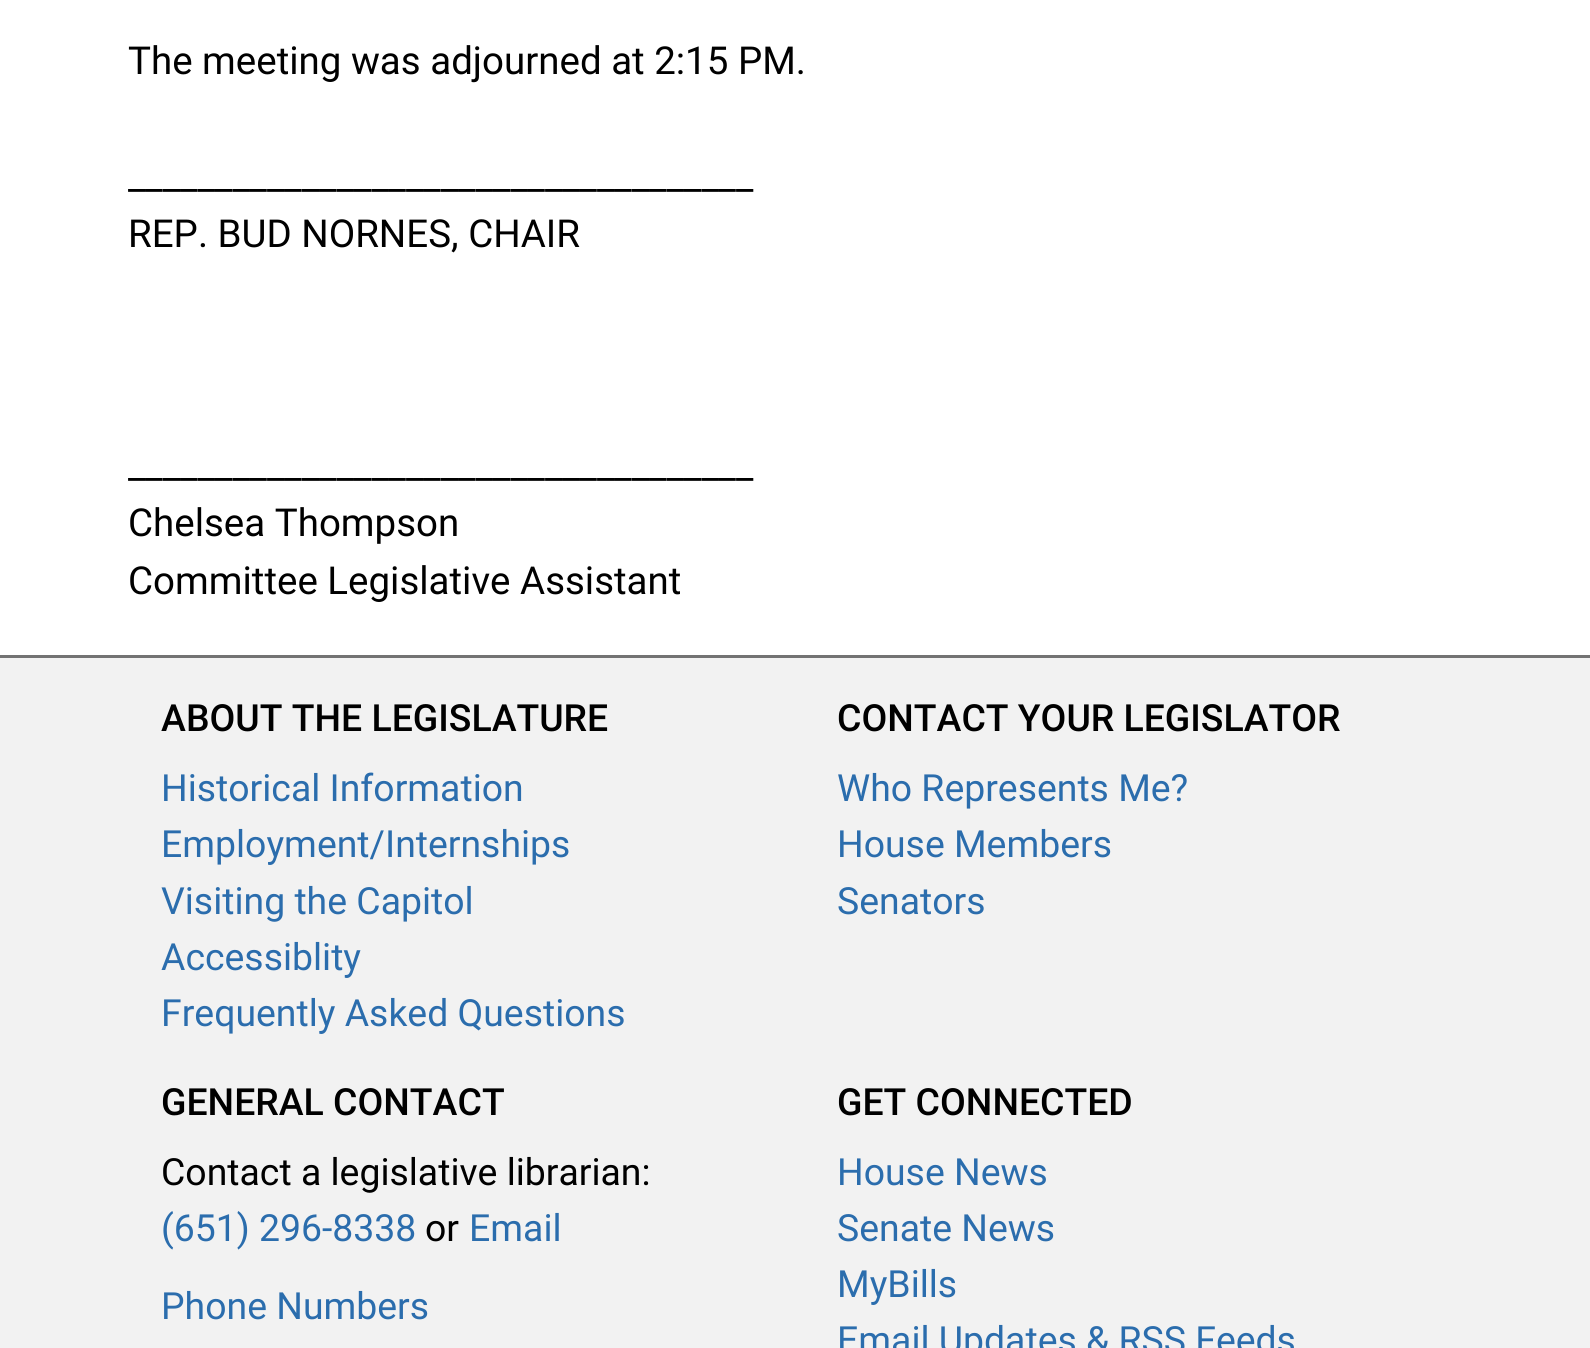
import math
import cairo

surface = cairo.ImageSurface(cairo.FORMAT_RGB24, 1590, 1348)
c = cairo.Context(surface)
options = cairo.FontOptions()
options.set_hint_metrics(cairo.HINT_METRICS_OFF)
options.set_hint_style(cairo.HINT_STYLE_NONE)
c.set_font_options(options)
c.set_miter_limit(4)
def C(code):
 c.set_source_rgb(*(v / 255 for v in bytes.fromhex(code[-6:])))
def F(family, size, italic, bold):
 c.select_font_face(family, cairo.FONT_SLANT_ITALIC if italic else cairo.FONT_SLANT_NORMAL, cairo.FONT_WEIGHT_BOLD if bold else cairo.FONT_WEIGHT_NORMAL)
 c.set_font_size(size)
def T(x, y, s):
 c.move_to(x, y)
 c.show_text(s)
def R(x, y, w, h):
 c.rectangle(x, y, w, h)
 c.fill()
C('ffffff')
c.paint()
F('Roboto',38.5,0,0)
C('000000')
T(128,74,'The meeting was adjourned at 2:15 PM.')
T(128,189,'____________________________________')
T(128,247,'REP. BUD NORNES, CHAIR')
T(128,478,'____________________________________')
T(128,536,'Chelsea Thompson')
T(128,594,'Committee Legislative Assistant')
C('f2f2f2')
R(0,658,1590,690)
C('737373')
R(0,655,1590,3)
F('Roboto Medium',37.4,0,0)
C('000000')
T(161,731,'ABOUT THE LEGISLATURE')
F('Roboto',37.4,0,0)
C('2b6dad')
T(161,801,'Historical Information')
T(161,857,'Employment/Internships')
T(161,914,'Visiting the Capitol')
T(161,970,'Accessiblity')
T(161,1026,'Frequently Asked Questions')
F('Roboto Medium',37.4,0,0)
C('000000')
T(837,731,'CONTACT YOUR LEGISLATOR')
F('Roboto',37.4,0,0)
C('2b6dad')
T(837,801,'Who Represents Me?')
T(837,857,'House Members')
T(837,914,'Senators')
F('Roboto Medium',37.4,0,0)
C('000000')
T(161,1115,'GENERAL CONTACT')
F('Roboto',37.4,0,0)
T(161,1185,'Contact a legislative librarian:')
C('2b6dad')
T(161,1241,'(651) 296-8338')
C('000000')
T(425,1241,'or')
C('2b6dad')
T(469,1241,'Email')
T(161,1319,'Phone Numbers')
F('Roboto Medium',37.4,0,0)
C('000000')
T(837,1115,'GET CONNECTED')
F('Roboto',37.4,0,0)
C('2b6dad')
T(837,1185,'House News')
T(837,1241,'Senate News')
T(837,1297,'MyBills')
T(837,1353,'Email Updates & RSS Feeds')
surface.write_to_png('o.png')
